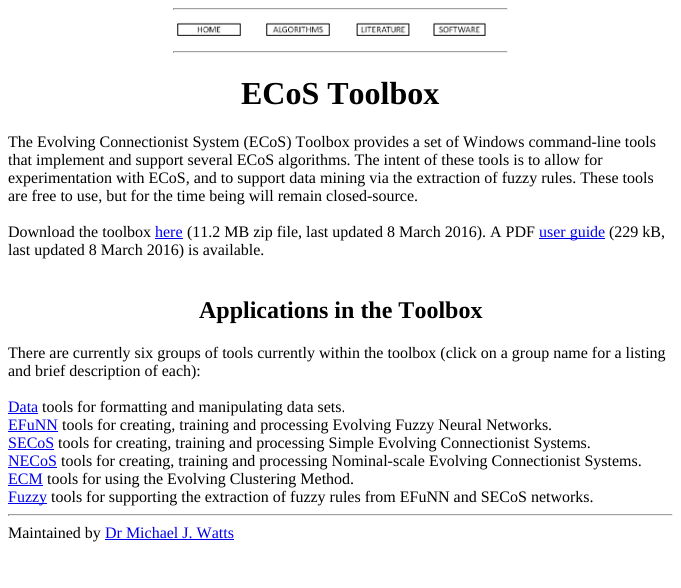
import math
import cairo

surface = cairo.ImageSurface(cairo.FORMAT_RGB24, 681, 588)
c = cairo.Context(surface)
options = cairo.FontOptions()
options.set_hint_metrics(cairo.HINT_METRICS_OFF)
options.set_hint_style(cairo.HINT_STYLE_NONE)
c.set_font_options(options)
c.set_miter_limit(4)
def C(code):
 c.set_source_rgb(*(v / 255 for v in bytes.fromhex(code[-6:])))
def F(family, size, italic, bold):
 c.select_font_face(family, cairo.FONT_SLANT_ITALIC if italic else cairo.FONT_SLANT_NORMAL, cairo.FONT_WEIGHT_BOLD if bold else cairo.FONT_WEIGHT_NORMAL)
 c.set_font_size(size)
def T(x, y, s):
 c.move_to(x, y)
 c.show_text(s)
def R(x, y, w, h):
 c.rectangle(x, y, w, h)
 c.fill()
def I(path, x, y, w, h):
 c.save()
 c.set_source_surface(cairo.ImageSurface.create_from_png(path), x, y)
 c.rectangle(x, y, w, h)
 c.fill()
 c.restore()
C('ffffff')
c.paint()
C('9f9f9f')
R(173,8,335,1)
C('eeeeee')
R(507,8,1,2)
R(173,9,335,1)
C('9f9f9f')
R(173,8,1,2)
I('1.png',177,22,64,14)
I('2.png',266,22,64,14)
I('3.png',356,22,54,14)
I('4.png',433,22,53,14)
R(173,51,335,1)
C('eeeeee')
R(507,51,1,2)
R(173,52,335,1)
C('9f9f9f')
R(173,51,1,2)
F('Liberation Serif',32,0,1)
C('000000')
T(241,104,'ECoS Toolbox')
F('Liberation Serif',16,0,0)
T(8,147,'The Evolving Connectionist System (ECoS) Toolbox provides a set of Windows command-line tools')
T(8,165,'that implement and support several ECoS algorithms. The intent of these tools is to allow for')
T(8,183,'experimentation with ECoS, and to support data mining via the extraction of fuzzy rules. These tools')
T(8,201,'are free to use, but for the time being will remain closed-source.')
T(8,237,'Download the toolbox')
C('0000ee')
T(155,237,'here')
R(155,238,28,1)
C('000000')
T(187,237,'(11.2 MB zip file, last updated 8 March 2016). A PDF')
C('0000ee')
R(539,238,66,1)
T(539,237,'user guide')
C('000000')
T(609,237,'(229 kB,')
T(8,255,'last updated 8 March 2016) is available.')
F('Liberation Serif',24,0,1)
T(199,318,'Applications in the Toolbox')
F('Liberation Serif',16,0,0)
T(8,358,'There are currently six groups of tools currently within the toolbox (click on a group name for a listing')
T(8,376,'and brief description of each):')
C('0000ee')
T(8,412,'Data')
R(8,413,30,1)
C('000000')
T(42,412,'tools for formatting and manipulating data sets.')
C('0000ee')
T(8,430,'EFuNN')
R(8,431,50,1)
C('000000')
T(62,430,'tools for creating, training and processing Evolving Fuzzy Neural Networks.')
C('0000ee')
T(8,448,'SECoS')
R(8,449,46,1)
C('000000')
T(58,448,'tools for creating, training and processing Simple Evolving Connectionist Systems.')
C('0000ee')
T(8,466,'NECoS')
R(8,467,49,1)
C('000000')
T(61,466,'tools for creating, training and processing Nominal-scale Evolving Connectionist Systems.')
C('0000ee')
T(8,484,'ECM')
R(8,485,35,1)
C('000000')
T(47,484,'tools for using the Evolving Clustering Method.')
C('0000ee')
R(8,503,39,1)
T(8,502,'Fuzzy')
C('000000')
T(51,502,'tools for supporting the extraction of fuzzy rules from EFuNN and SECoS networks.')
C('9f9f9f')
R(8,514,665,1)
C('eeeeee')
R(672,514,1,2)
R(8,515,665,1)
C('9f9f9f')
R(8,514,1,2)
C('000000')
T(8,538,'Maintained by')
C('0000ee')
T(105,538,'Dr Michael J. Watts')
R(105,539,129,1)
surface.write_to_png('o.png')
